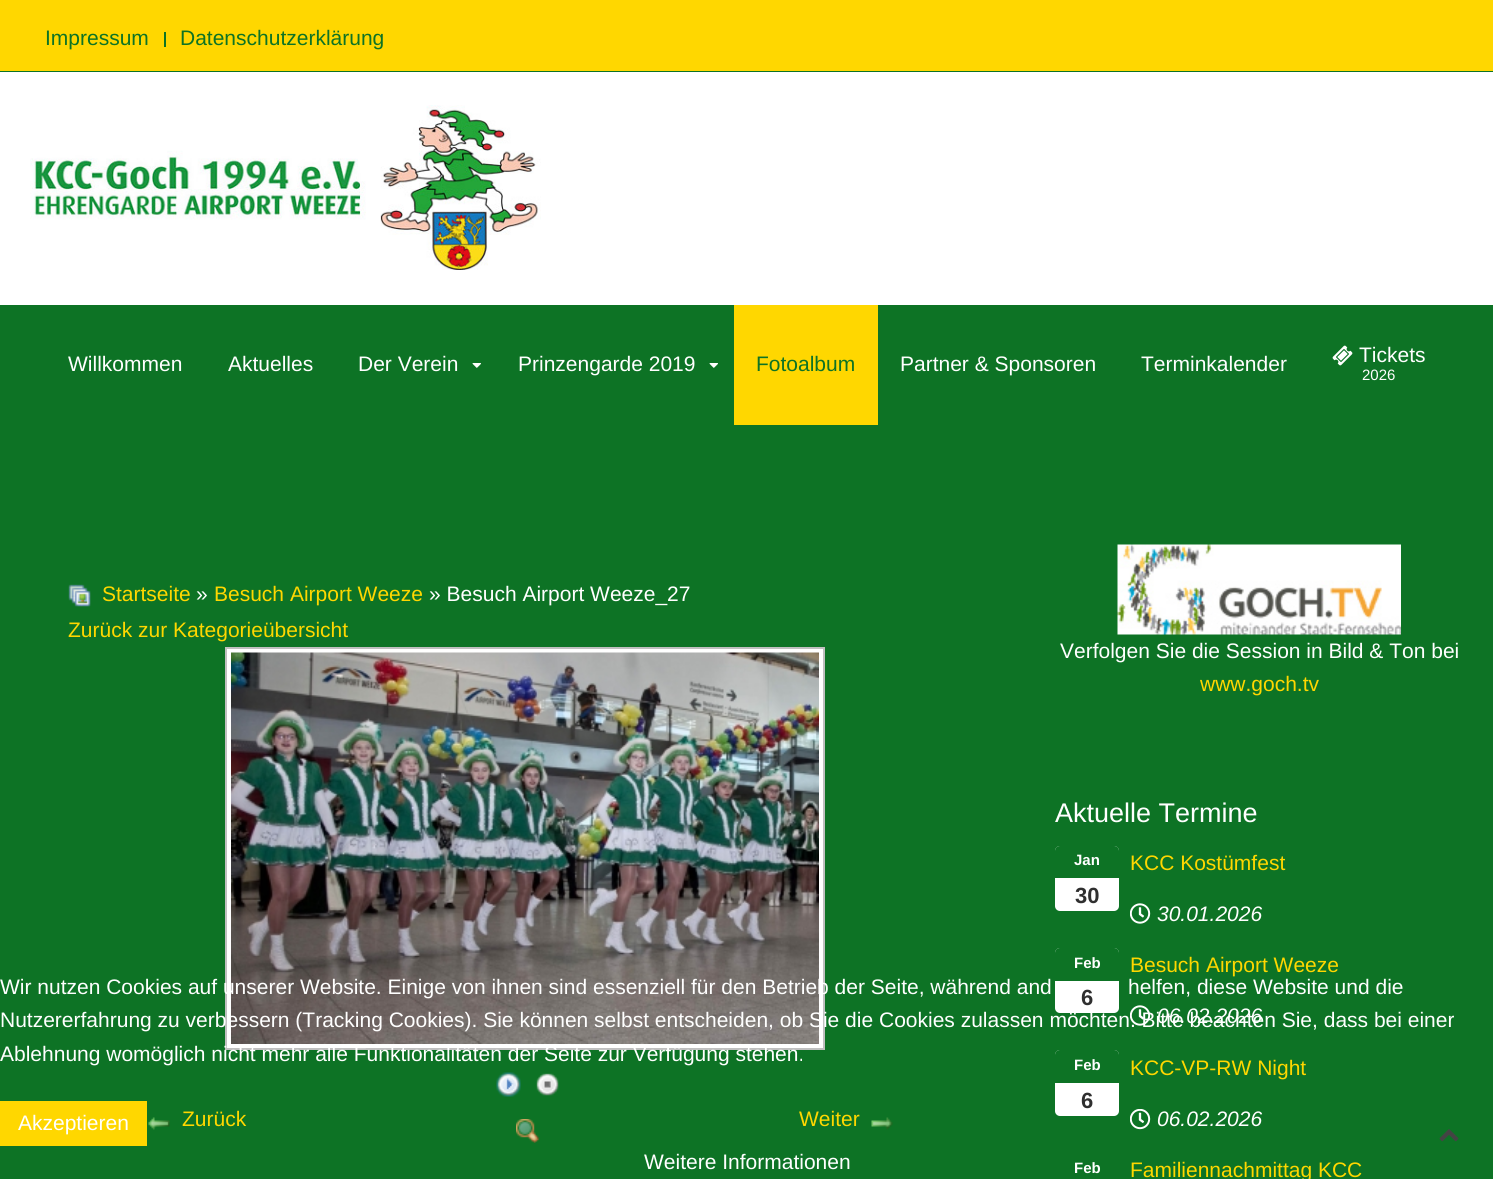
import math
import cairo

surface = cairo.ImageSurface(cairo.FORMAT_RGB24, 1493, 1179)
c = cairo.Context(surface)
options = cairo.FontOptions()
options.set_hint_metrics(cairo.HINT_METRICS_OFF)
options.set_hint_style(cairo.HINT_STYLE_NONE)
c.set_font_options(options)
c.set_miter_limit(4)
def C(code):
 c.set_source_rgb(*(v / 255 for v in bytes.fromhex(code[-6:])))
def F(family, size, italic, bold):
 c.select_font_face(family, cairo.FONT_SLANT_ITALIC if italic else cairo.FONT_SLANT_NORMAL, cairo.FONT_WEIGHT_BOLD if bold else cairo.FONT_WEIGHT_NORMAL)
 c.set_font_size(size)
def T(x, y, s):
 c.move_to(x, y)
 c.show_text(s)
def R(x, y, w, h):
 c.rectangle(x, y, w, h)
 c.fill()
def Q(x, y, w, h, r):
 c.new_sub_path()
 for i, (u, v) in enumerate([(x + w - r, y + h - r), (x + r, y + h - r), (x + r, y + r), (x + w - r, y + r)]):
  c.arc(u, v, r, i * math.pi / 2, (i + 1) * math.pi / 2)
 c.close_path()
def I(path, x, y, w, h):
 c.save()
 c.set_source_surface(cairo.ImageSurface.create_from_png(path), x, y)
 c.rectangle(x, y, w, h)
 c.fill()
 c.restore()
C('ffd700')
c.paint()
C('0d7325')
R(0,71,1493,1)
F('Liberation Sans',21,0,0)
T(45,45,'Impressum')
R(164,32,2,15)
T(180,45,'Datenschutzerklärung')
C('ffffff')
R(0,72,1493,233)
I('1.png',30,105,511,165)
C('0d7325')
R(0,305,1493,874)
C('ffffff')
T(68,371,'Willkommen')
T(228,371,'Aktuelles')
T(358,371,'Der Verein')
I('2.png',472,363,9,5)
T(518,371,'Prinzengarde 2019')
I('2.png',709,363,9,5)
C('ffd700')
R(734,305,144,120)
C('0d7325')
T(756,371,'Fotoalbum')
C('ffffff')
T(900,371,'Partner & Sponsoren')
T(1141,371,'Terminkalender')
I('3.png',1332,345,21,21)
T(1359,362,'Tickets')
F('Liberation Sans',15,0,0)
T(1362,380,'2026')
I('4.png',68,584,23,23)
F('Liberation Sans',21,0,0)
C('ffd700')
T(102,601,'Startseite')
C('ffffff')
T(196,601,'»')
C('ffd700')
T(214,601,'Besuch Airport Weeze')
C('ffffff')
T(429,601,'» Besuch Airport Weeze_27')
C('ffd700')
T(68,637,'Zurück zur Kategorieübersicht')
C('ffffff')
c.rectangle(226,648,598,401)
c.fill_preserve()
C('c0c0c0')
c.stroke()
I('5.png',231,652,588,392)
I('6.png',496,1072,25,25)
I('7.png',536,1073,23,23)
I('8.png',148,1117,22,13)
C('ffd700')
T(182,1126,'Zurück')
I('9.png',516,1119,24,24)
T(799,1126,'Weiter')
I('10.png',871,1117,22,13)
I('11.png',1117,544,284,91)
C('ffffff')
T(1060,658,'Verfolgen Sie die Session in Bild & Ton bei')
C('ffd700')
T(1200,691,'www.goch.tv')
F('Liberation Sans',27,0,0)
C('ffffff')
T(1055,822,'Aktuelle Termine')
Q(1055,846,64,65,5)
c.fill()
C('0d7325')
R(1055,875,64,3)
c.new_path()
c.move_to(1060,846)
c.line_to(1114,846)
c.curve_to(1117,846,1119,848,1119,851)
c.line_to(1119,875)
c.line_to(1055,875)
c.line_to(1055,851)
c.curve_to(1055,848,1057,846,1060,846)
c.close_path()
c.fill()
F('Liberation Sans',15,0,1)
C('ffffff')
T(1074,865,'Jan')
F('Liberation Sans',22,0,1)
C('2f2f2f')
T(1075,903,'30')
F('Liberation Sans',21,0,0)
C('ffd700')
T(1130,870,'KCC Kostümfest')
I('12.png',1130,903,21,21)
F('Liberation Sans',21,1,0)
C('ffffff')
T(1157,921,'30.01.2026')
Q(1055,948,64,65,5)
c.fill()
C('0d7325')
R(1055,978,64,3)
c.new_path()
c.move_to(1060,948)
c.line_to(1114,948)
c.curve_to(1117,948,1119,950,1119,953)
c.line_to(1119,978)
c.line_to(1055,978)
c.line_to(1055,953)
c.curve_to(1055,950,1057,948,1060,948)
c.close_path()
c.fill()
F('Liberation Sans',15,0,1)
C('ffffff')
T(1074,968,'Feb')
F('Liberation Sans',22,0,1)
C('2f2f2f')
T(1081,1005,'6')
F('Liberation Sans',21,0,0)
C('ffd700')
T(1130,972,'Besuch Airport Weeze')
I('12.png',1130,1005,21,21)
F('Liberation Sans',21,1,0)
C('ffffff')
T(1157,1023,'06.02.2026')
Q(1055,1050,64,66,5)
c.fill()
C('0d7325')
R(1055,1080,64,3)
c.new_path()
c.move_to(1060,1050)
c.line_to(1114,1050)
c.curve_to(1117,1050,1119,1052,1119,1055)
c.line_to(1119,1080)
c.line_to(1055,1080)
c.line_to(1055,1055)
c.curve_to(1055,1052,1057,1050,1060,1050)
c.close_path()
c.fill()
F('Liberation Sans',15,0,1)
C('ffffff')
T(1074,1070,'Feb')
F('Liberation Sans',22,0,1)
C('2f2f2f')
T(1081,1108,'6')
F('Liberation Sans',21,0,0)
C('ffd700')
T(1130,1075,'KCC-VP-RW Night')
I('13.png',1130,1109,21,21)
F('Liberation Sans',21,1,0)
C('ffffff')
T(1157,1126,'06.02.2026')
F('Liberation Sans',15,0,1)
T(1074,1173,'Feb')
F('Liberation Sans',21,0,0)
C('ffd700')
T(1130,1177,'Familiennachmittag KCC')
C('ffffff')
T(0,994,'Wir nutzen Cookies auf unserer Website. Einige von ihnen sind essenziell für den Betrieb der Seite, während and')
T(1128,994,'helfen, diese Website und die')
T(0,1027,'Nutzererfahrung zu verbessern (Tracking Cookies). Sie können selbst entscheiden, ob Sie die Cookies zulassen möchten. Bitte beachten Sie, dass bei einer')
T(0,1061,'Ablehnung womöglich nicht mehr alle Funktionalitäten der Seite zur Verfügung stehen.')
C('ffd700')
R(0,1101,147,45)
C('ffffff')
T(18,1130,'Akzeptieren')
T(644,1169,'Weitere Informationen')
I('14.png',1439,1129,20,13)
surface.write_to_png('o.png')
